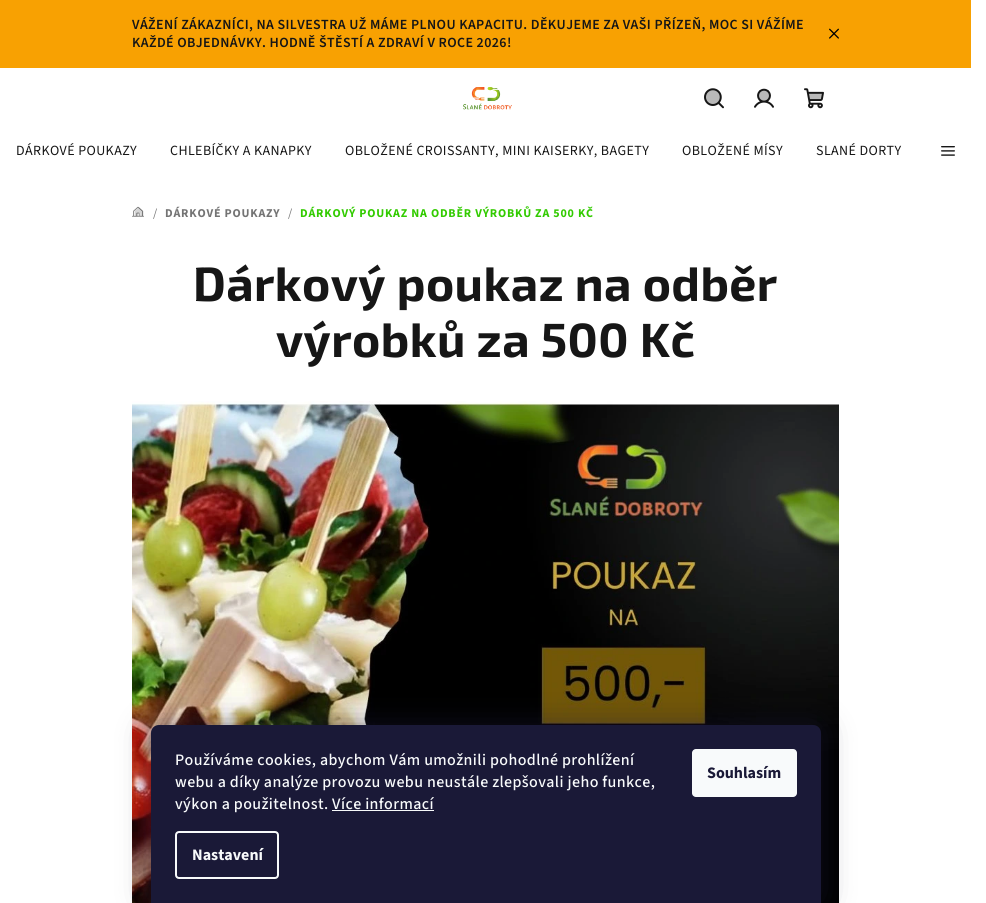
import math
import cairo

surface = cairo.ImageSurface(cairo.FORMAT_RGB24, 986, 903)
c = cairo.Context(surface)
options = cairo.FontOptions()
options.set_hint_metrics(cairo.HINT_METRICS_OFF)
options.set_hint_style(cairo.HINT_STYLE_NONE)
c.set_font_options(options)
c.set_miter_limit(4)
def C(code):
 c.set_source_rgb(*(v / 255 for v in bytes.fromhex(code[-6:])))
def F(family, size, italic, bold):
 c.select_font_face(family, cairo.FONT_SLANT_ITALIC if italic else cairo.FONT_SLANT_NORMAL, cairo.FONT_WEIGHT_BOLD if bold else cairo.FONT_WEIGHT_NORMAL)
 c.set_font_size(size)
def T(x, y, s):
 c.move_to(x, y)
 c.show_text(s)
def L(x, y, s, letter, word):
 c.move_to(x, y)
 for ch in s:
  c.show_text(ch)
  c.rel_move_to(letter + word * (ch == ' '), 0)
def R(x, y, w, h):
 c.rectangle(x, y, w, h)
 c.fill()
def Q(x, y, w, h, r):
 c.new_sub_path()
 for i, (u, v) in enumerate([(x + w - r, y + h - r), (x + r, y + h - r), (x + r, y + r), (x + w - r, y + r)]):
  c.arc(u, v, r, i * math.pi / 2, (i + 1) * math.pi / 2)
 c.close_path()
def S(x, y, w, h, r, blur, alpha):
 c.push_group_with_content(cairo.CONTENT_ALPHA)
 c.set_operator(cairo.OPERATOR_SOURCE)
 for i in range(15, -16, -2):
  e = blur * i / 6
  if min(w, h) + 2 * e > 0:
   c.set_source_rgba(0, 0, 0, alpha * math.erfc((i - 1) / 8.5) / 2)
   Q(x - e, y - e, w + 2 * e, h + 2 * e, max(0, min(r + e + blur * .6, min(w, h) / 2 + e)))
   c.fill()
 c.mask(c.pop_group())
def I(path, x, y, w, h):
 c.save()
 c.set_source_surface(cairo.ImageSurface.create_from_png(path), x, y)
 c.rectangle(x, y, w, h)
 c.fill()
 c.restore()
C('ffffff')
c.paint()
C('f8a102')
R(0,0,971,68)
F('Source Sans 3 SemiBold',14,0,0)
C('161616')
L(132,29,'VÁŽENÍ ZÁKAZNÍCI, NA SILVESTRA UŽ MÁME PLNOU KAPACITU. DĚKUJEME ZA VAŠI PŘÍZEŇ, MOC SI VÁŽÍME',.4,0)
L(132,47,'KAŽDÉ OBJEDNÁVKY. HODNĚ ŠTĚSTÍ A ZDRAVÍ V ROCE 2026!',.4,0)
I('1.png',829,28,10,11)
I('2.png',463,87,49,23)
I('3.png',704,88,20,21)
c.set_source_rgba(0.086,0.086,0.086,0.3)
c.new_path()
c.move_to(713,105)
c.curve_to(723,105,723,89,713,89)
c.curve_to(702.5,89,702.5,105,713,105)
c.close_path()
c.fill()
I('4.png',754,88,20,20)
R(759,90,10,11)
I('5.png',804,88,20,21)
R(809,93,13,7)
F('Source Sans 3',14,0,0)
C('161616')
L(16,155,'DÁRKOVÉ POUKAZY',.4,0)
L(170,155,'CHLEBÍČKY A KANAPKY',.4,0)
L(345,155,'OBLOŽENÉ CROISSANTY, MINI KAISERKY, BAGETY',.4,0)
L(682,155,'OBLOŽENÉ MÍSY',.4,0)
L(816,155,'SLANÉ DORTY',.4,0)
I('6.png',941,146,14,10)
I('7.png',132,206,12,11)
I('8.png',134,207,10,10)
F('Source Sans 3',12,0,0)
C('747474')
L(153,217,'/',.8,0)
F('Source Sans 3',12,0,1)
L(165,217,'DÁRKOVÉ POUKAZY',.8,0)
F('Source Sans 3',12,0,0)
L(288,217,'/',.8,0)
F('Source Sans 3',12,0,1)
C('32cb00')
L(300,217,'DÁRKOVÝ POUKAZ NA ODBĚR VÝROBKŮ ZA 500 KČ',.8,0)
F('Exo 2',48,0,1)
C('161616')
L(193,301,'Dárkový poukaz na odběr',.4,0)
L(276,357,'výrobků za 500 Kč',.4,0)
I('9.png',132,401,707,502)
C('1b1939')
S(151,725,670,178,8,15,.5)
C('1a1937')
c.new_path()
c.move_to(159,725)
c.line_to(813,725)
c.curve_to(817.5,725,821,728.5,821,733)
c.line_to(821,903)
c.line_to(151,903)
c.line_to(151,733)
c.curve_to(151,728.5,154.5,725,159,725)
c.close_path()
c.fill()
F('Source Sans 3 Medium',16,0,0)
C('f8fafb')
L(175,765,'Používáme cookies, abychom Vám umožnili pohodlné prohlížení',.4,0)
L(175,787,'webu a díky analýze provozu webu neustále zlepšovali jeho funkce,',.4,0)
L(175,809,'výkon a použitelnost. Více informací',.4,0)
R(332,810,102,1)
Q(176,832,102,46,3)
c.stroke()
F('Source Sans 3',16,0,1)
T(192,860,'Nastavení')
Q(692,749,105,48,4)
c.fill()
C('1a1937')
T(707,778,'Souhlasím')
surface.write_to_png('o.png')
